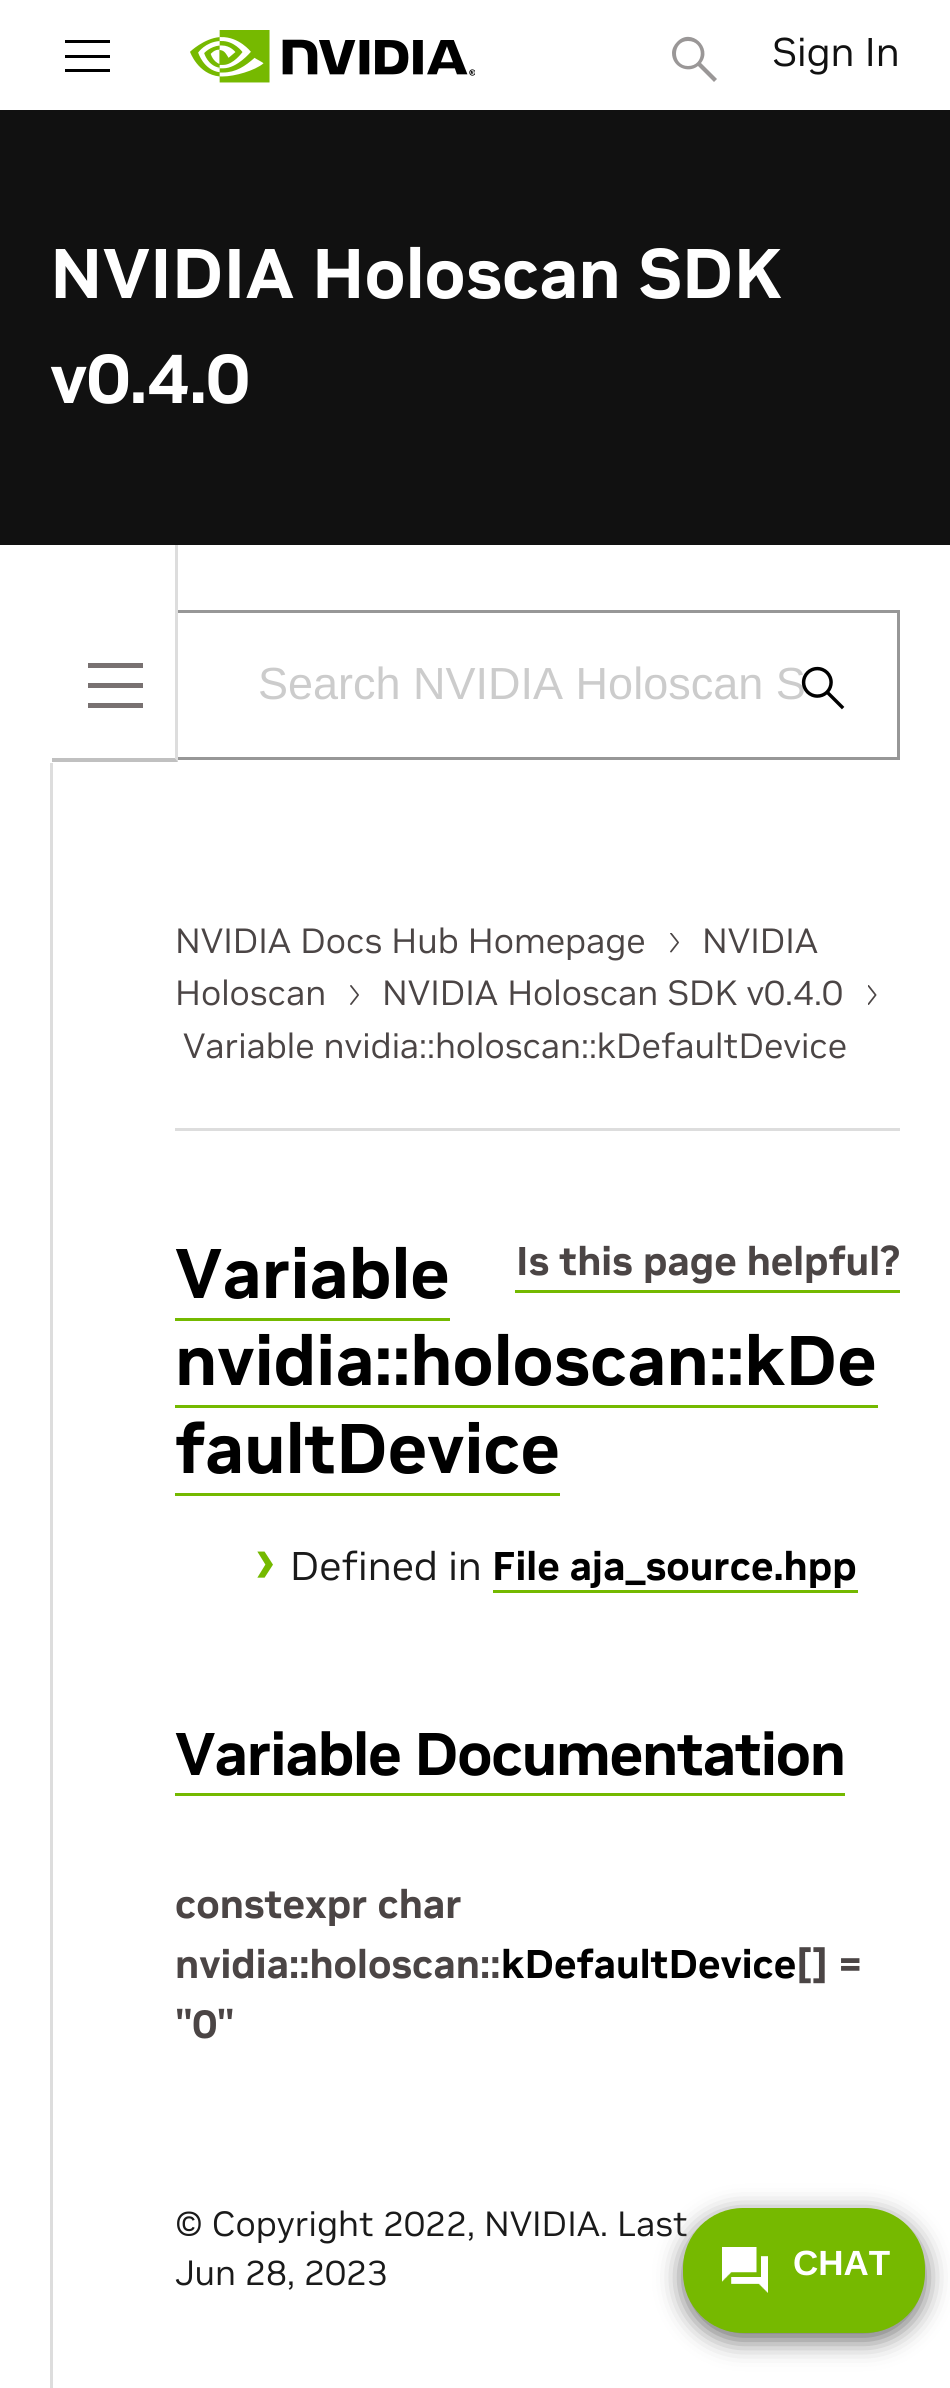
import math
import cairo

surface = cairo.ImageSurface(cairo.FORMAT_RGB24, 950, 2388)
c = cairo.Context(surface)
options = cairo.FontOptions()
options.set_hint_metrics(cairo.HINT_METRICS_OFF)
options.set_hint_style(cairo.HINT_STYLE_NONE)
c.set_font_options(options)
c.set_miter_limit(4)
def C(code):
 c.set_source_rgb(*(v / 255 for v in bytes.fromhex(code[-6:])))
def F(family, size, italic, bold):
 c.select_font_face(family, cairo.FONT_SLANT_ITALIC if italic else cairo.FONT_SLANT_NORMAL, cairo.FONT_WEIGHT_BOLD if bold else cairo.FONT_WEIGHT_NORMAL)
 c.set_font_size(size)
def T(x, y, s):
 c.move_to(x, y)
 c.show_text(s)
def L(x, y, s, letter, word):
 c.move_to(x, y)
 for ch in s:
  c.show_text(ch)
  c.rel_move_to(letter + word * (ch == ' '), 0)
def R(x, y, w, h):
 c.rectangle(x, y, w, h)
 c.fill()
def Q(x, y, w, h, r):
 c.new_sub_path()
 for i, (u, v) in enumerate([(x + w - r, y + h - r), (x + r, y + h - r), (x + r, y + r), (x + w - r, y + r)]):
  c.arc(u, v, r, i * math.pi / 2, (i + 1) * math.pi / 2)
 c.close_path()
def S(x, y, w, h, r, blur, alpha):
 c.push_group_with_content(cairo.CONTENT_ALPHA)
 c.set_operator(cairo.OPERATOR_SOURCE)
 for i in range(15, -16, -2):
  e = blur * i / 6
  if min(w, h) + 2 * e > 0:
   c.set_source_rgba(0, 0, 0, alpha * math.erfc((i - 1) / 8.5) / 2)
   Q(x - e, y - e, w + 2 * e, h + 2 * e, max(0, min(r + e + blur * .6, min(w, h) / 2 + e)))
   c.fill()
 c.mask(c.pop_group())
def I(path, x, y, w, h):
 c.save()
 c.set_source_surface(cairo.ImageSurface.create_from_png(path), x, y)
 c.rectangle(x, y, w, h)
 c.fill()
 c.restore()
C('ffffff')
c.paint()
C('000000')
c.set_fill_rule(cairo.FILL_RULE_EVEN_ODD)
c.new_path()
c.move_to(65,58)
c.line_to(65,55)
c.line_to(110,55)
c.line_to(110,58)
c.close_path()
c.move_to(65,43)
c.line_to(65,40)
c.line_to(110,40)
c.line_to(110,43)
c.close_path()
c.move_to(65,72)
c.line_to(65,69)
c.line_to(110,69)
c.line_to(110,72)
c.close_path()
c.fill()
I('1.png',190,30,285,53)
C('9a9797')
c.new_path()
c.move_to(688,41)
c.curve_to(672,41,672,66,688,66)
c.curve_to(705,66,705,41,688,41)
c.close_path()
c.move_to(672,53)
c.curve_to(672,49,674,45,677,42)
c.curve_to(691,27,713,48,701,63)
c.line_to(717,79)
c.line_to(714,82)
c.line_to(698,66)
c.curve_to(688,74,672,67,672,53)
c.close_path()
c.fill()
F('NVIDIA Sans',40,0,0)
C('111111')
T(772,66,'Sign In')
R(0,110,950,435)
F('NVIDIA Sans',70,0,1)
C('ffffff')
T(50,298,'NVIDIA Holoscan SDK')
T(50,403,'v0.4.0')
c.rectangle(176.5,611.5,722,147)
C('979797')
c.set_line_width(3)
c.stroke()
C('ffffff')
R(175,610,3,150)
C('dddddd')
c.set_fill_rule(cairo.FILL_RULE_WINDING)
c.new_path()
c.move_to(178,545)
c.line_to(178,762)
c.line_to(175,758)
c.line_to(175,545)
c.close_path()
c.fill()
C('c0c0c0')
c.new_path()
c.move_to(178,762)
c.line_to(52,762)
c.line_to(52,758)
c.line_to(175,758)
c.close_path()
c.fill()
C('787171')
R(88,663,55,5)
R(88,683,55,5)
R(88,703,55,5)
C('dddddd')
R(50,763,3,1625)
F('Liberation Sans',45,0,0)
C('cccccc')
T(258,699,'Search NVIDIA Holoscan S')
I('2.png',801,666,44,44)
F('NVIDIA Sans',35,0,0)
C('4b4545')
T(175,953,'NVIDIA Docs Hub Homepage')
I('3.png',670,933,9,20)
T(702,953,'NVIDIA')
T(175,1005,'Holoscan')
I('4.png',350,985,9,20)
T(382,1005,'NVIDIA Holoscan SDK v0.4.0')
I('5.png',868,985,9,20)
T(183,1058,'Variable nvidia::holoscan::kDefaultDevice')
C('dddddd')
R(175,1128,725,3)
C('74b900')
R(515,1290,385,3)
F('NVIDIA Sans',40,0,1)
C('4b4545')
T(516,1275,'Is this page helpful?')
F('NVIDIA Sans',70,0,1)
C('000000')
T(175,1298,'Variable')
T(175,1385,'nvidia::holoscan::kDe')
C('74b900')
R(175,1318,275,3)
C('000000')
T(175,1473,'faultDevice')
C('74b900')
R(175,1405,703,3)
R(175,1493,385,3)
F('NVIDIA Sans Medium',60,0,0)
T(255,1580,'›')
F('NVIDIA Sans',40,0,0)
C('1a1a1a')
T(290,1580,'Defined in')
F('NVIDIA Sans',40,0,1)
C('000000')
T(492,1580,'File aja_source.hpp')
C('74b900')
R(493,1590,365,3)
F('NVIDIA Sans',60,0,1)
C('000000')
L(175,1775,'Variable Documentation',-1.25,0)
C('74b900')
R(175,1793,670,3)
F('NVIDIA Sans',40,0,1)
C('4b4545')
T(175,1918,'constexpr char')
T(175,1978,'nvidia::holoscan::')
C('000000')
T(501,1978,'kDefaultDevice')
C('4b4545')
T(796,1978,'[] =')
T(175,2038,'"0"')
F('NVIDIA Sans',35,0,0)
C('1a1a1a')
T(175,2236,'© Copyright 2022, NVIDIA. Last')
T(175,2285,'Jun 28, 2023')
C('666666')
S(683,2215,242,125,60,12.5,1)
C('76b900')
Q(683,2208,242,125,60)
c.fill()
I('6.png',722,2247,46,46)
F('Liberation Sans',35,0,1)
C('ffffff')
T(793,2275,'CHAT')
surface.write_to_png('o.png')
